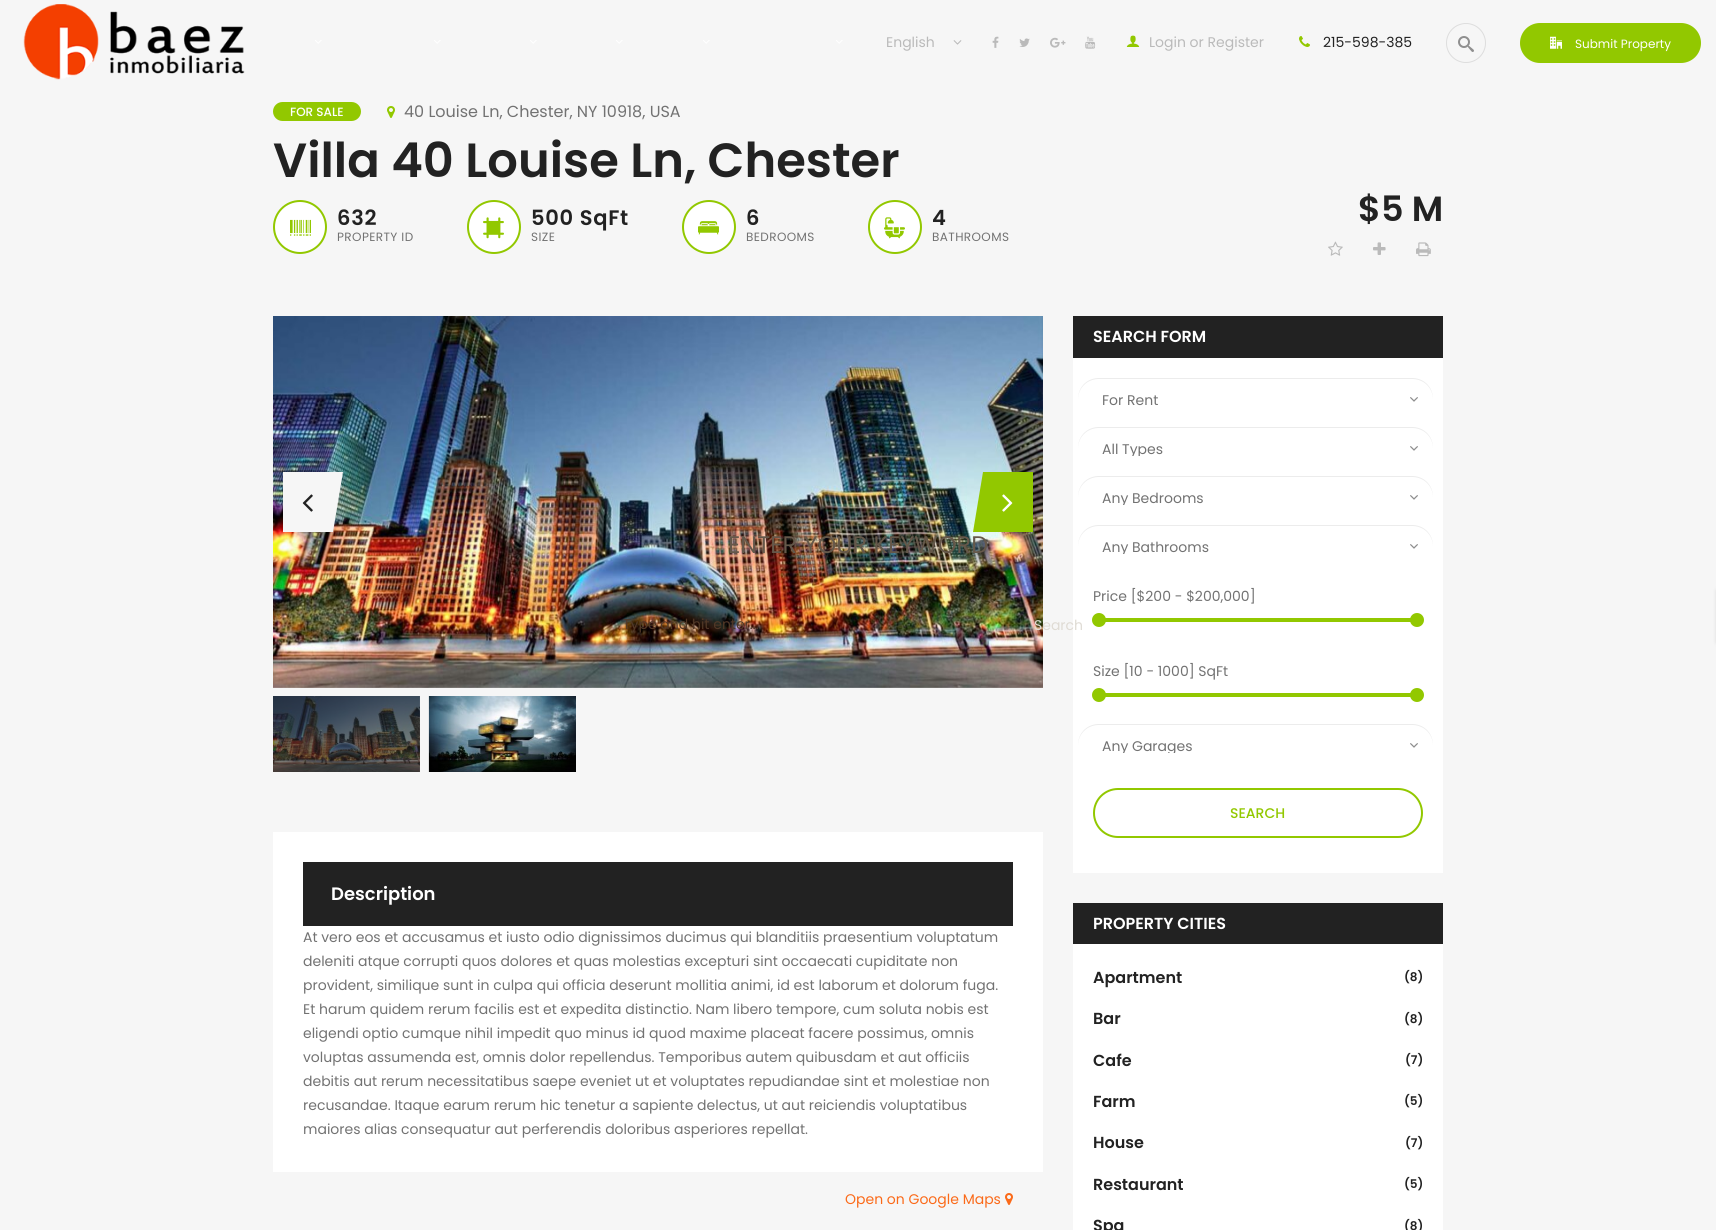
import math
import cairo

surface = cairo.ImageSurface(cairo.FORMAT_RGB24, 1716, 1230)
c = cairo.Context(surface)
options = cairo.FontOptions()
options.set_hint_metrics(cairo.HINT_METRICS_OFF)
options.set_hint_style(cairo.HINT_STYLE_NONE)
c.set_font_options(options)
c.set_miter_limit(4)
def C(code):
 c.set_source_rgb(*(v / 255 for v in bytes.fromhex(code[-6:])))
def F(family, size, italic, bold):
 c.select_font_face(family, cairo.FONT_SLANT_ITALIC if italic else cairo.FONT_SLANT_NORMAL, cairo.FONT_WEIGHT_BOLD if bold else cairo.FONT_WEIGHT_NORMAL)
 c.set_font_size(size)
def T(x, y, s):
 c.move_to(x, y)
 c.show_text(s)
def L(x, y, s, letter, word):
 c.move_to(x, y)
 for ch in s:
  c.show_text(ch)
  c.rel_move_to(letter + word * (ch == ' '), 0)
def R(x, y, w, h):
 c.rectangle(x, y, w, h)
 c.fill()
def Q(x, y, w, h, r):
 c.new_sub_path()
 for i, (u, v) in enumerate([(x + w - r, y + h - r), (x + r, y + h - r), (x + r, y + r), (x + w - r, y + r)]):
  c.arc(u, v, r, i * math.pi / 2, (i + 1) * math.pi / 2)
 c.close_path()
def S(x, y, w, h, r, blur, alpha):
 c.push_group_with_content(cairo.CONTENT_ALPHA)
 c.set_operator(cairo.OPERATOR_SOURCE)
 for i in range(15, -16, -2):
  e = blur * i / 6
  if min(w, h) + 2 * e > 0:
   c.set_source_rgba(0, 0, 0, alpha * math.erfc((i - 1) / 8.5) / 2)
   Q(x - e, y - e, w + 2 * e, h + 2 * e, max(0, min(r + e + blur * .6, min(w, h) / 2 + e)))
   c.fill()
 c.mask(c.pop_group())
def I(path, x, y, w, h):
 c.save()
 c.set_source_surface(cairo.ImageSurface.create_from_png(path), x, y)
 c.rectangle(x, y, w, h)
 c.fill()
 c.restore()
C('f6f6f6')
c.paint()
I('1.png',23,4,222,76)
I('2.png',315,40,7,4)
I('2.png',434,40,7,4)
I('2.png',530,40,7,4)
I('2.png',616,40,7,4)
I('2.png',703,40,7,4)
I('2.png',836,40,7,4)
F('Poppins',14,0,0)
C('bababa')
T(886,47,'English')
I('3.png',953,40,9,5)
I('4.png',992,36,7,12)
I('5.png',1019,38,11,9)
I('6.png',1050,37,16,11)
I('7.png',1085,36,11,13)
I('8.png',1126,35,14,12)
T(1149,47,'Login or Register')
I('9.png',1299,36,11,11)
C('222222')
T(1323,47,'215-598-385')
c.new_path()
c.arc(1466,43,19.5,0,2 * math.pi)
C('dddddd')
c.set_line_width(1)
c.stroke()
I('10.png',1458,36,16,16)
C('92c800')
Q(1521,24,179,38,19)
c.fill_preserve()
c.set_line_width(2)
c.stroke()
I('11.png',1550,36,12,13)
F('Poppins',12,0,0)
C('ffffff')
T(1575,48,'Submit Property')
C('92c800')
Q(273,102,88,19,9.5)
c.fill()
F('Poppins Medium',12,0,0)
C('ffffff')
T(290,116,'FOR SALE')
I('12.png',387,106,8,12)
F('Poppins',16,0,0)
C('727272')
T(404,117,'40 Louise Ln, Chester, NY 10918, USA')
F('Poppins SemiBold',48,0,0)
C('222222')
T(273,177,'Villa 40 Louise Ln, Chester')
C('ffffff')
c.new_path()
c.arc(300,227,26,0,2 * math.pi)
c.fill_preserve()
C('92c800')
c.stroke()
I('13.png',290,219,21,17)
F('Poppins SemiBold',21,0,0)
C('222222')
L(337,225,'632',.75,0)
F('Poppins',12,0,0)
C('727272')
L(337,241,'PROPERTY ID',.4,0)
C('ffffff')
c.new_path()
c.arc(494,227,26,0,2 * math.pi)
c.fill_preserve()
C('92c800')
c.stroke()
I('14.png',483,217,21,22)
F('Poppins SemiBold',21,0,0)
C('222222')
L(531,225,'500 SqFt',.75,0)
F('Poppins',12,0,0)
C('727272')
L(531,241,'SIZE',.4,0)
C('ffffff')
c.new_path()
c.arc(709,227,26,0,2 * math.pi)
c.fill_preserve()
C('92c800')
c.stroke()
I('15.png',698,221,21,14)
F('Poppins SemiBold',21,0,0)
C('222222')
L(746,225,'6',.75,0)
F('Poppins',12,0,0)
C('727272')
L(746,241,'BEDROOMS',.4,0)
C('ffffff')
c.new_path()
c.arc(895,227,26,0,2 * math.pi)
c.fill_preserve()
C('92c800')
c.stroke()
I('16.png',884,217,21,22)
F('Poppins SemiBold',21,0,0)
C('222222')
L(932,225,'4',.75,0)
F('Poppins',12,0,0)
C('727272')
L(932,241,'BATHROOMS',.4,0)
F('Poppins SemiBold',35,0,0)
C('222222')
T(1358,221,'$5 M')
I('17.png',1328,241,15,15)
I('18.png',1373,242,13,13)
I('19.png',1416,242,15,15)
I('20.png',273,316,770,372)
C('f6f6f6')
R(283,472,50,60)
I('21.png',302,494,11,18)
c.new_path()
c.move_to(333,472)
c.line_to(343,472)
c.line_to(333,532)
c.close_path()
c.fill()
C('92c800')
R(983,472,50,60)
c.new_path()
c.move_to(983,532)
c.line_to(973,532)
c.line_to(983,472)
c.close_path()
c.fill()
I('22.png',1002,494,11,18)
I('23.png',273,696,147,76)
I('24.png',428,696,148,76)
C('ffffff')
R(273,832,770,340)
C('222222')
R(303,862,710,64)
F('Poppins SemiBold',18,0,0)
C('ffffff')
T(331,900,'Description')
F('Poppins',14,0,0)
C('727272')
T(303,942,'At vero eos et accusamus et iusto odio dignissimos ducimus qui blanditiis praesentium voluptatum')
T(303,966,'deleniti atque corrupti quos dolores et quas molestias excepturi sint occaecati cupiditate non')
T(303,990,'provident, similique sunt in culpa qui officia deserunt mollitia animi, id est laborum et dolorum fuga.')
T(303,1014,'Et harum quidem rerum facilis est et expedita distinctio. Nam libero tempore, cum soluta nobis est')
T(303,1038,'eligendi optio cumque nihil impedit quo minus id quod maxime placeat facere possimus, omnis')
T(303,1062,'voluptas assumenda est, omnis dolor repellendus. Temporibus autem quibusdam et aut officiis')
T(303,1086,'debitis aut rerum necessitatibus saepe eveniet ut et voluptates repudiandae sint et molestiae non')
T(303,1110,'recusandae. Itaque earum rerum hic tenetur a sapiente delectus, ut aut reiciendis voluptatibus')
T(303,1134,'maiores alias consequatur aut perferendis doloribus asperiores repellat.')
C('fb6a19')
T(845,1204,'Open on Google Maps')
I('25.png',1005,1193,8,12)
C('222222')
R(1073,316,370,42)
F('Poppins SemiBold',16,0,0)
C('ffffff')
T(1093,342,'SEARCH FORM')
R(1073,358,370,515)
I('26.png',1410,397,8,5)
C('ececec')
c.new_path()
c.move_to(1099,379)
c.line_to(1412,379)
c.curve_to(1424,379,1433,388,1433,400)
c.line_to(1433,399)
c.curve_to(1433,387,1424,378,1412,378)
c.line_to(1099,378)
c.curve_to(1087,378,1078,387,1078,399)
c.line_to(1078,400)
c.curve_to(1078,388,1087,379,1099,379)
c.close_path()
c.fill()
F('Poppins',14,0,0)
C('727272')
T(1102,405,'For Rent')
I('26.png',1410,446,8,5)
C('ececec')
c.new_path()
c.move_to(1099,428)
c.line_to(1412,428)
c.curve_to(1424,428,1433,437,1433,449)
c.line_to(1433,448)
c.curve_to(1433,436,1424,427,1412,427)
c.line_to(1099,427)
c.curve_to(1087,427,1078,436,1078,448)
c.line_to(1078,449)
c.curve_to(1078,437,1087,428,1099,428)
c.close_path()
c.fill()
c.save()
c.rectangle(1102,442,307,14)
c.clip()
C('727272')
T(1102,454,'All Types')
c.restore()
I('26.png',1410,495,8,5)
c.new_path()
c.move_to(1099,477)
c.line_to(1412,477)
c.curve_to(1424,477,1433,486,1433,498)
c.line_to(1433,497)
c.curve_to(1433,485,1424,476,1412,476)
c.line_to(1099,476)
c.curve_to(1087,476,1078,485,1078,497)
c.line_to(1078,498)
c.curve_to(1078,486,1087,477,1099,477)
c.close_path()
c.fill()
c.save()
c.rectangle(1102,491,307,14)
c.clip()
C('727272')
T(1102,503,'Any Bedrooms')
c.restore()
I('26.png',1410,544,8,5)
c.new_path()
c.move_to(1099,526)
c.line_to(1412,526)
c.curve_to(1424,526,1433,535,1433,547)
c.line_to(1433,546)
c.curve_to(1433,534,1424,525,1412,525)
c.line_to(1099,525)
c.curve_to(1087,525,1078,534,1078,546)
c.line_to(1078,547)
c.curve_to(1078,535,1087,526,1099,526)
c.close_path()
c.fill()
c.save()
c.rectangle(1102,540,307,14)
c.clip()
C('727272')
T(1102,552,'Any Bathrooms')
c.restore()
C('727272')
T(1093,601,'Price [$200 - $200,000]')
C('92c800')
R(1101,618,318,4)
c.new_path()
c.arc(1099,620,7,0,2 * math.pi)
c.fill()
c.arc(1417,620,7,0,2 * math.pi)
c.fill()
C('727272')
T(1093,676,'Size [10 - 1000] SqFt')
C('92c800')
R(1101,693,318,4)
c.new_path()
c.arc(1099,695,7,0,2 * math.pi)
c.fill()
c.arc(1417,695,7,0,2 * math.pi)
c.fill()
I('26.png',1410,743,8,5)
C('ececec')
c.new_path()
c.move_to(1099,725)
c.line_to(1412,725)
c.curve_to(1424,725,1433,734,1433,746)
c.line_to(1433,745)
c.curve_to(1433,733,1424,724,1412,724)
c.line_to(1099,724)
c.curve_to(1087,724,1078,733,1078,745)
c.line_to(1078,746)
c.curve_to(1078,734,1087,725,1099,725)
c.close_path()
c.fill()
c.save()
c.rectangle(1102,739,307,14)
c.clip()
C('727272')
T(1102,751,'Any Garages')
c.restore()
Q(1094,789,328,48,24)
C('92c800')
c.stroke()
F('Poppins Medium',14,0,0)
T(1230,818,'SEARCH')
C('222222')
R(1073,903,370,41)
F('Poppins SemiBold',16,0,0)
C('ffffff')
T(1093,929,'PROPERTY CITIES')
R(1073,944,370,286)
C('222222')
T(1093,983,'Apartment')
F('Poppins SemiBold',12,0,0)
T(1404,981,'(8)')
F('Poppins SemiBold',16,0,0)
T(1093,1024,'Bar')
F('Poppins SemiBold',12,0,0)
T(1404,1023,'(8)')
F('Poppins SemiBold',16,0,0)
T(1093,1066,'Cafe')
F('Poppins SemiBold',12,0,0)
T(1405,1064,'(7)')
F('Poppins SemiBold',16,0,0)
T(1093,1107,'Farm')
F('Poppins SemiBold',12,0,0)
T(1404,1105,'(5)')
F('Poppins SemiBold',16,0,0)
T(1093,1148,'House')
F('Poppins SemiBold',12,0,0)
T(1405,1147,'(7)')
F('Poppins SemiBold',16,0,0)
T(1093,1190,'Restaurant')
F('Poppins SemiBold',12,0,0)
T(1404,1188,'(5)')
F('Poppins SemiBold',16,0,0)
T(1093,1231,'Spa')
F('Poppins SemiBold',12,0,0)
T(1404,1230,'(8)')
F('Poppins',24,0,0)
C('65584a')
T(728,553,'ENTER YOUR KEYWORD')
F('Poppins',14,0,0)
C('513827')
T(623,629,'Type and hit enter...')
C('dfdbd4')
T(1034,630,'Search')
C('777777')
S(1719,591,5,51,0,2.5,1)
surface.write_to_png('o.png')
